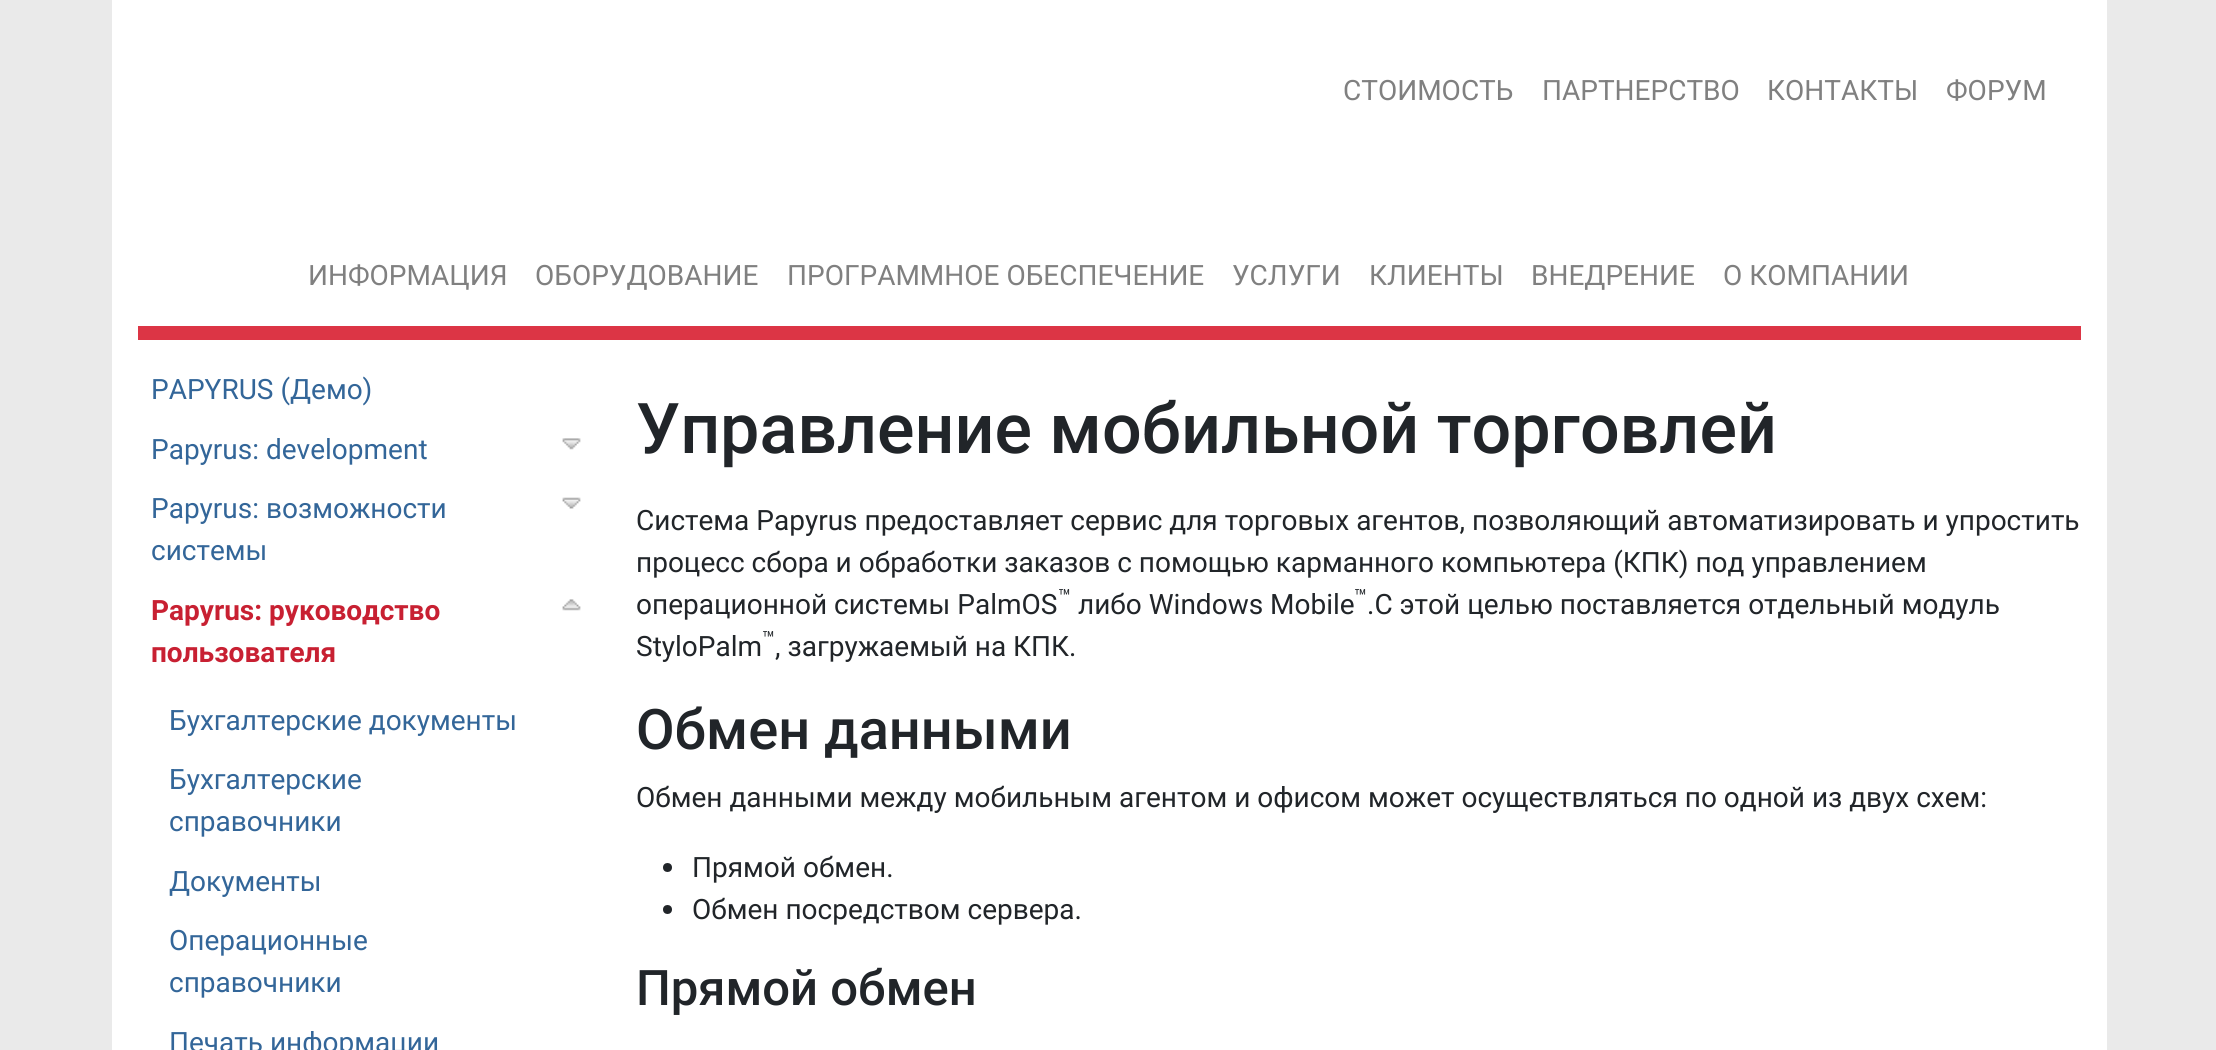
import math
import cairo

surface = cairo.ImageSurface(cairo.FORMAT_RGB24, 2216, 1050)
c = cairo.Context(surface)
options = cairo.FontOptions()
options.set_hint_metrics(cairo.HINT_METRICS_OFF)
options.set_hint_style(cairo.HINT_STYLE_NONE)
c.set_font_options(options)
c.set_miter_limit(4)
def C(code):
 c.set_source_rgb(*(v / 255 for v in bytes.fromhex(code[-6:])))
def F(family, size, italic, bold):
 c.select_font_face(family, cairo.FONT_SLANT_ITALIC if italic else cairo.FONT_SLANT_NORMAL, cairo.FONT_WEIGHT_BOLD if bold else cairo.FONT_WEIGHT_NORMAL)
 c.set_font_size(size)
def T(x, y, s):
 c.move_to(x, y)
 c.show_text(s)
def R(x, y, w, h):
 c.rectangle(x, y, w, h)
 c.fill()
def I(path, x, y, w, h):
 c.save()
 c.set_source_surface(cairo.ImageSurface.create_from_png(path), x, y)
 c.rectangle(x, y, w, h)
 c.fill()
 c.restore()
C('eaeaea')
c.paint()
C('ffffff')
R(112,0,1995,1050)
F('Roboto',28,0,0)
C('808080')
T(1343,100,'СТОИМОСТЬ')
T(1542,100,'ПАРТНЕРСТВО')
T(1767,100,'КОНТАКТЫ')
T(1946,100,'ФОРУМ')
T(308,285,'ИНФОРМАЦИЯ')
T(535,285,'ОБОРУДОВАНИЕ')
T(787,285,'ПРОГРАММНОЕ ОБЕСПЕЧЕНИЕ')
T(1232,285,'УСЛУГИ')
T(1369,285,'КЛИЕНТЫ')
T(1531,285,'ВНЕДРЕНИЕ')
T(1723,285,'О КОМПАНИИ')
C('dc3545')
R(138,326,1943,14)
C('336699')
T(151,399,'PAPYRUS (Демо)')
T(151,459,'Papyrus: development')
I('1.png',562,438,19,12)
T(151,518,'Papyrus: возможности')
T(151,560,'системы')
I('2.png',562,497,19,12)
F('Roboto',28,0,1)
C('c82032')
T(151,620,'Papyrus: руководство')
T(151,662,'пользователя')
I('3.png',562,599,19,12)
F('Roboto',28,0,0)
C('336699')
T(169,730,'Бухгалтерские документы')
T(169,789,'Бухгалтерские')
T(169,831,'справочники')
T(169,891,'Документы')
T(169,950,'Операционные')
T(169,992,'справочники')
T(169,1052,'Печать информации')
F('Roboto Medium',70,0,0)
C('212529')
T(636,453,'Управление мобильной торговлей')
F('Roboto',28,0,0)
T(636,530,'Система Papyrus предоставляет сервис для торговых агентов, позволяющий автоматизировать и упростить')
T(636,572,'процесс сбора и обработки заказов с помощью карманного компьютера (КПК) под управлением')
T(636,614,'операционной системы PalmOS')
F('Roboto',21,0,0)
T(1058,604,'™')
F('Roboto',28,0,0)
T(1078,614,'либо Windows Mobile')
F('Roboto',21,0,0)
T(1354,604,'™')
F('Roboto',28,0,0)
T(1367,614,'.С этой целью поставляется отдельный модуль')
F('Roboto',21,0,0)
T(762,646,'™')
F('Roboto',28,0,0)
T(636,656,'StyloPalm')
T(775,656,', загружаемый на КПК.')
F('Roboto Medium',56,0,0)
T(636,749,'Обмен данными')
F('Roboto',28,0,0)
T(636,807,'Обмен данными между мобильным агентом и офисом может осуществляться по одной из двух схем:')
c.new_path()
c.arc(667.5,867.5,4.5,0,2 * math.pi)
c.fill()
T(692,877,'Прямой обмен.')
c.new_path()
c.arc(667.5,909.5,4.5,0,2 * math.pi)
c.fill()
T(692,919,'Обмен посредством сервера.')
F('Roboto Medium',49,0,0)
T(636,1005,'Прямой обмен')
surface.write_to_png('o.png')
